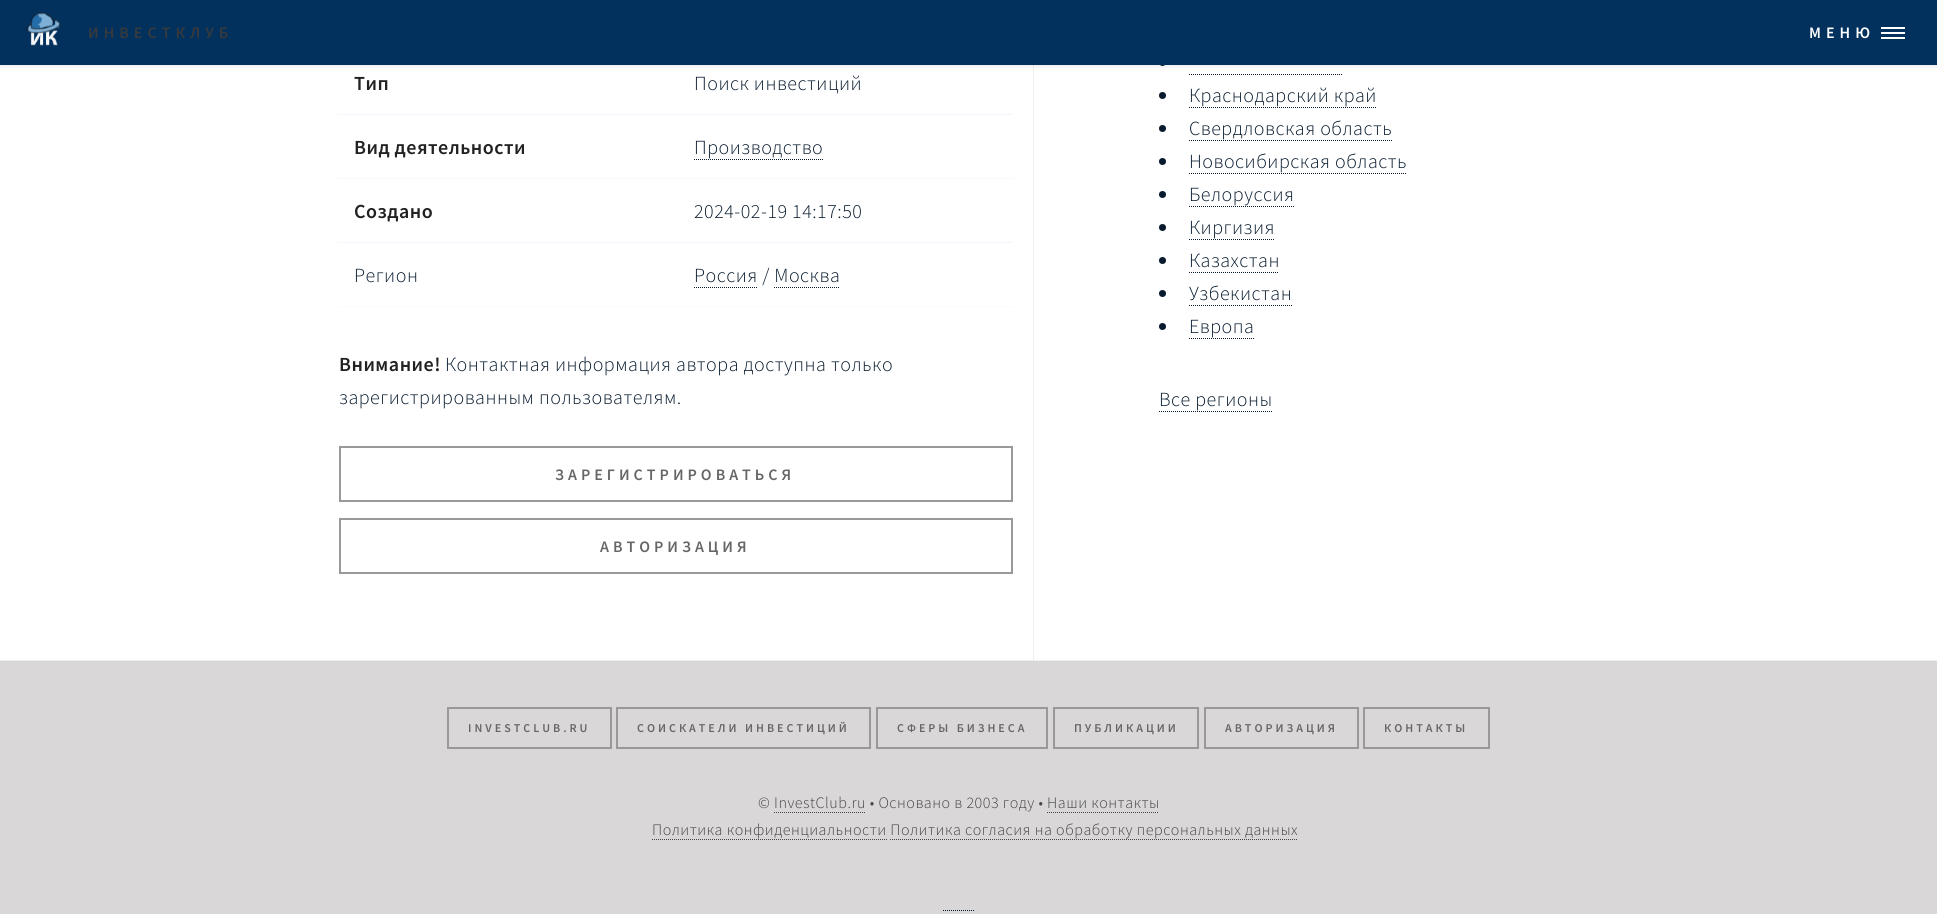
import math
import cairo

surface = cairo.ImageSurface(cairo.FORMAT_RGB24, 1937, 914)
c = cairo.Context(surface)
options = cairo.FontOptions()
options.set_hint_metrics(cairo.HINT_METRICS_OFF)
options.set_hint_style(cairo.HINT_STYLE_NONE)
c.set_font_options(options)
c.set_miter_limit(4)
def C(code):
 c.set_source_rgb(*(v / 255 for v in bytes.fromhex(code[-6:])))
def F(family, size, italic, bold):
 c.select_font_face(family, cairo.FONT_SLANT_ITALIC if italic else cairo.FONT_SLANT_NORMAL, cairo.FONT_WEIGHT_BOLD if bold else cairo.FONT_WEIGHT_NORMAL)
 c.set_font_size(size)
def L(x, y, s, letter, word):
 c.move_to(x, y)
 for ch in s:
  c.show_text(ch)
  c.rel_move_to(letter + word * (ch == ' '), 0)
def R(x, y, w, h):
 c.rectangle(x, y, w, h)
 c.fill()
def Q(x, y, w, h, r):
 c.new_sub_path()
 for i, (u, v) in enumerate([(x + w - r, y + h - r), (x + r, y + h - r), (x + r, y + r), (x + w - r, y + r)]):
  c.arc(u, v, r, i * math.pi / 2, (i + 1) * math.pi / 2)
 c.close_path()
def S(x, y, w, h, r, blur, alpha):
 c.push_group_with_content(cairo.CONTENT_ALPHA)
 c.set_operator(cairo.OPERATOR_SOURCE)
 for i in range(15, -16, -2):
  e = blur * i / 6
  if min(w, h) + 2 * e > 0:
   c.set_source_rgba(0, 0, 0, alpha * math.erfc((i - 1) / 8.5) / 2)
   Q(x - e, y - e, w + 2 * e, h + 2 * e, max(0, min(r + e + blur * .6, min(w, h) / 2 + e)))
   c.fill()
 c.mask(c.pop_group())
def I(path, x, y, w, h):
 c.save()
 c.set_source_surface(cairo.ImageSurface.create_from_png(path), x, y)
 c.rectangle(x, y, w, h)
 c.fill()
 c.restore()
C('ffffff')
c.paint()
C('efeff0')
R(1033,65,1,595)
C('081b2e')
c.arc(1162.5,62.5,3.5,0,2 * math.pi)
c.fill()
C('000000')
S(0,0,1937,65,0,2.5,.15)
C('02315e')
R(0,0,1937,65)
I('1.png',26,12,35,34)
F('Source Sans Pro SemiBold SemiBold',16,0,0)
C('37393b')
L(88,38,'ИНВЕСТКЛУБ',5,0)
C('ffffff')
L(1809,38,'МЕНЮ',5,0)
R(1881,27,24,2)
R(1881,37,24,2)
R(1881,32,24,2)
C('efeff0')
R(0,660,1937,1)
C('f5f5ff')
R(338,114,675,1)
F('Source Sans Pro SemiBold SemiBold',20,0,0)
C('222222')
L(354,90,'Тип',.5,0)
F('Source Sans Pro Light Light',20,0,0)
C('081b2e')
L(694,90,'Поиск инвестиций',.5,0)
C('f7f7ff')
R(338,178,675,1)
F('Source Sans Pro SemiBold SemiBold',20,0,0)
C('222222')
L(354,154,'Вид деятельности',.5,0)
F('Source Sans Pro Light Light',20,0,0)
C('081b2e')
L(694,154,'Производство',.5,0)
c.new_path()
c.move_to(694,159.5)
c.line_to(823,159.5)
c.set_line_width(1)
c.set_dash([1,1])
c.stroke()
C('f5f5ff')
R(338,242,675,1)
F('Source Sans Pro SemiBold SemiBold',20,0,0)
C('222222')
L(354,218,'Создано',.5,0)
F('Source Sans Pro Light Light',20,0,0)
C('081b2e')
L(694,218,'2024-02-19 14:17:50',.5,0)
C('fbfbff')
R(338,306,675,1)
C('081b2e')
L(354,282,'Регион',.5,0)
L(694,282,'Россия / Москва',.5,0)
c.new_path()
c.move_to(694,287.5)
c.line_to(757,287.5)
c.stroke()
c.new_path()
c.move_to(774,287.5)
c.line_to(840,287.5)
c.stroke()
F('Source Sans Pro SemiBold SemiBold',20,0,0)
C('222222')
L(339,371,'Внимание!',.5,0)
F('Source Sans Pro Light Light',20,0,0)
C('081b2e')
L(445,371,'Контактная информация автора доступна только',.5,0)
L(339,404,'зарегистрированным пользователям.',.5,0)
c.rectangle(340,447,672,54)
C('999999')
c.set_line_width(2)
c.set_dash([])
c.stroke()
F('Source Sans Pro SemiBold SemiBold',16,0,0)
C('666666')
L(555,480,'ЗАРЕГИСТРИРОВАТЬСЯ',4,0)
c.rectangle(340,519,672,54)
C('999999')
c.stroke()
C('666666')
L(600,552,'АВТОРИЗАЦИЯ',4,0)
c.new_path()
c.move_to(1189,74.5)
c.line_to(1342,74.5)
C('081b2e')
c.set_line_width(1)
c.set_dash([1,1])
c.stroke()
c.arc(1162.5,95.5,3.5,0,2 * math.pi)
c.fill()
F('Source Sans Pro Light Light',20,0,0)
L(1189,102,'Краснодарский край',.5,0)
c.new_path()
c.move_to(1189,107.5)
c.line_to(1376,107.5)
c.stroke()
c.arc(1162.5,128.5,3.5,0,2 * math.pi)
c.fill()
L(1189,135,'Свердловская область',.5,0)
c.new_path()
c.move_to(1189,140.5)
c.line_to(1392,140.5)
c.stroke()
c.arc(1162.5,161.5,3.5,0,2 * math.pi)
c.fill()
L(1189,168,'Новосибирская область',.5,0)
c.new_path()
c.move_to(1189,173.5)
c.line_to(1407,173.5)
c.stroke()
c.arc(1162.5,194.5,3.5,0,2 * math.pi)
c.fill()
L(1189,201,'Белоруссия',.5,0)
c.new_path()
c.move_to(1189,206.5)
c.line_to(1294,206.5)
c.stroke()
c.arc(1162.5,227.5,3.5,0,2 * math.pi)
c.fill()
L(1189,234,'Киргизия',.5,0)
c.new_path()
c.move_to(1189,239.5)
c.line_to(1275,239.5)
c.stroke()
c.arc(1162.5,260.5,3.5,0,2 * math.pi)
c.fill()
L(1189,267,'Казахстан',.5,0)
c.new_path()
c.move_to(1189,272.5)
c.line_to(1279,272.5)
c.stroke()
c.arc(1162.5,293.5,3.5,0,2 * math.pi)
c.fill()
L(1189,300,'Узбекистан',.5,0)
c.new_path()
c.move_to(1189,305.5)
c.line_to(1292,305.5)
c.stroke()
c.arc(1162.5,326.5,3.5,0,2 * math.pi)
c.fill()
L(1189,333,'Европа',.5,0)
c.new_path()
c.move_to(1189,338.5)
c.line_to(1254,338.5)
c.stroke()
L(1159,406,'Все регионы',.5,0)
c.new_path()
c.move_to(1159,411.5)
c.line_to(1272,411.5)
c.stroke()
C('d9d7d7')
R(0,661,1937,253)
c.rectangle(448,708,163,40)
C('999999')
c.set_line_width(2)
c.set_dash([])
c.stroke()
F('Source Sans Pro SemiBold SemiBold',12,0,0)
C('666666')
L(468,732,'INVESTCLUB.RU',3,0)
c.rectangle(617,708,253,40)
C('999999')
c.stroke()
C('666666')
L(637,732,'СОИСКАТЕЛИ ИНВЕСТИЦИЙ',3,0)
c.rectangle(877,708,170,40)
C('999999')
c.stroke()
C('666666')
L(897,732,'СФЕРЫ БИЗНЕСА',3,0)
c.rectangle(1054,708,144,40)
C('999999')
c.stroke()
C('666666')
L(1074,732,'ПУБЛИКАЦИИ',3,0)
c.rectangle(1205,708,153,40)
C('999999')
c.stroke()
C('666666')
L(1225,732,'АВТОРИЗАЦИЯ',3,0)
c.rectangle(1364,708,125,40)
C('999999')
c.stroke()
C('666666')
L(1384,732,'КОНТАКТЫ',3,0)
F('Source Sans Pro Light Light',16,0,0)
C('444444')
L(758,808,'© InvestClub.ru • Основано в 2003 году • Наши контакты',.5,0)
c.new_path()
c.move_to(774,812.5)
c.line_to(866,812.5)
c.set_line_width(1)
c.set_dash([1,1])
c.stroke()
c.new_path()
c.move_to(1047,812.5)
c.line_to(1159,812.5)
c.stroke()
C('d8d7db')
R(635,821,1,16)
C('444444')
L(652,835,'Политика конфиденциальности Политика согласия на обработку персональных данных',.5,0)
c.new_path()
c.move_to(652,839.5)
c.line_to(887,839.5)
c.stroke()
c.new_path()
c.move_to(890,839.5)
c.line_to(1298,839.5)
c.stroke()
c.new_path()
c.move_to(943,910.5)
c.line_to(974,910.5)
C('081b2e')
c.stroke()
surface.write_to_png('o.png')
